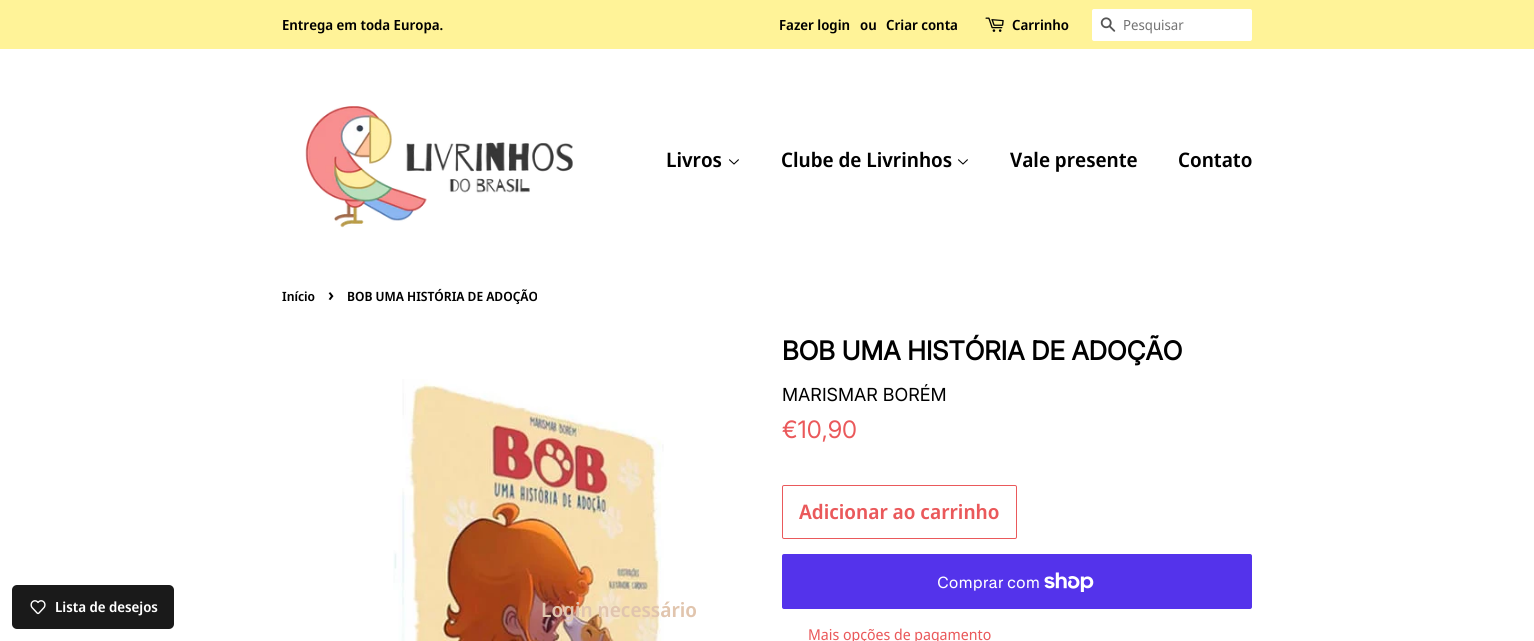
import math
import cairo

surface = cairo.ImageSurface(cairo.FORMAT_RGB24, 1534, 641)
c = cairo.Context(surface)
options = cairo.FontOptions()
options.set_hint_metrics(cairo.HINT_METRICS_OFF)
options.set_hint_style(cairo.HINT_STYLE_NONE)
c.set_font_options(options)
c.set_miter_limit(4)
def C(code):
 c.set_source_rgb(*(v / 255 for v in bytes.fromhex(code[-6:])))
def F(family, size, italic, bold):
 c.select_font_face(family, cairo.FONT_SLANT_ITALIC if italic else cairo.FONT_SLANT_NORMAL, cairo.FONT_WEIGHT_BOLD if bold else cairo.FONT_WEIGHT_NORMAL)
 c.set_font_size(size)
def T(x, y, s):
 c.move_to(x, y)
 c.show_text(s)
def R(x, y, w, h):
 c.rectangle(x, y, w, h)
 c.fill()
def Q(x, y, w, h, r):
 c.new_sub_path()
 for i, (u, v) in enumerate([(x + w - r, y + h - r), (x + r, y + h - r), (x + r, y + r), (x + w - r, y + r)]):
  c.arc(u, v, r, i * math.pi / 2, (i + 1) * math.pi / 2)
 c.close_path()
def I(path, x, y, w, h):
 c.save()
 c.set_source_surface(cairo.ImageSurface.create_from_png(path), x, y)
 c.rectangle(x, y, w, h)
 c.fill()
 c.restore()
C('ffffff')
c.paint()
C('fff398')
R(0,0,1534,49)
F('Noto Sans Display SemiBold',14,0,0)
C('000000')
T(282,30,'Entrega em toda Europa.')
T(779,30,'Fazer login')
T(860,30,'ou')
T(886,30,'Criar conta')
I('1.png',985,17,19,15)
T(1012,30,'Carrinho')
C('ffffff')
Q(1092,9,160,32,2)
c.fill()
I('2.png',1100,17,16,15)
F('Noto Sans Display',14,0,0)
C('757575')
T(1123,30,'Pesquisar')
I('3.png',305,106,268,122)
F('Noto Sans Display SemiBold',20,0,0)
C('000000')
T(666,167,'Livros')
I('4.png',729,159,10,6)
T(781,167,'Clube de Livrinhos')
I('4.png',958,159,10,6)
T(1010,167,'Vale presente')
T(1178,167,'Contato')
F('Noto Sans Display SemiBold',12.75,0,0)
T(282,301,'Início')
F('Noto Sans Display SemiBold',18,0,0)
T(328,301,'›')
F('Noto Sans Display SemiBold',12.75,0,0)
T(347,301,'BOB UMA HISTÓRIA DE ADOÇÃO')
I('5.png',393,379,271,262)
F('Inter',26,0,1)
T(782,360,'BOB UMA HISTÓRIA DE ADOÇÃO')
F('Inter',18,0,0)
T(782,401,'MARISMAR BORÉM')
F('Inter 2',24,0,0)
C('ea595b')
T(782,438,'€10,90')
Q(782.5,485.5,234,53,1.5)
c.set_line_width(1)
c.stroke()
F('Noto Sans Display SemiBold',20,0,0)
T(799,519,'Adicionar ao carrinho')
C('5433eb')
Q(782,554,470,55,2)
c.fill()
F('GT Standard',16,0,0)
C('ffffff')
T(937,588,'Comprar com')
I('6.png',1044,572,50,20)
F('Noto Sans Display',15,0,0)
C('ea595b')
T(808,640,'Mais opções de pagamento')
C('1a1a1a')
Q(12,585,162,44,5)
c.fill()
I('7.png',30,600,16,15)
F('Noto Sans Display SemiBold',14,0,0)
C('ffffff')
T(55,612,'Lista de desejos')
F('Noto Sans Display SemiBold',20,0,0)
C('e1c5ae')
T(541,617,'Login necessário')
surface.write_to_png('o.png')
